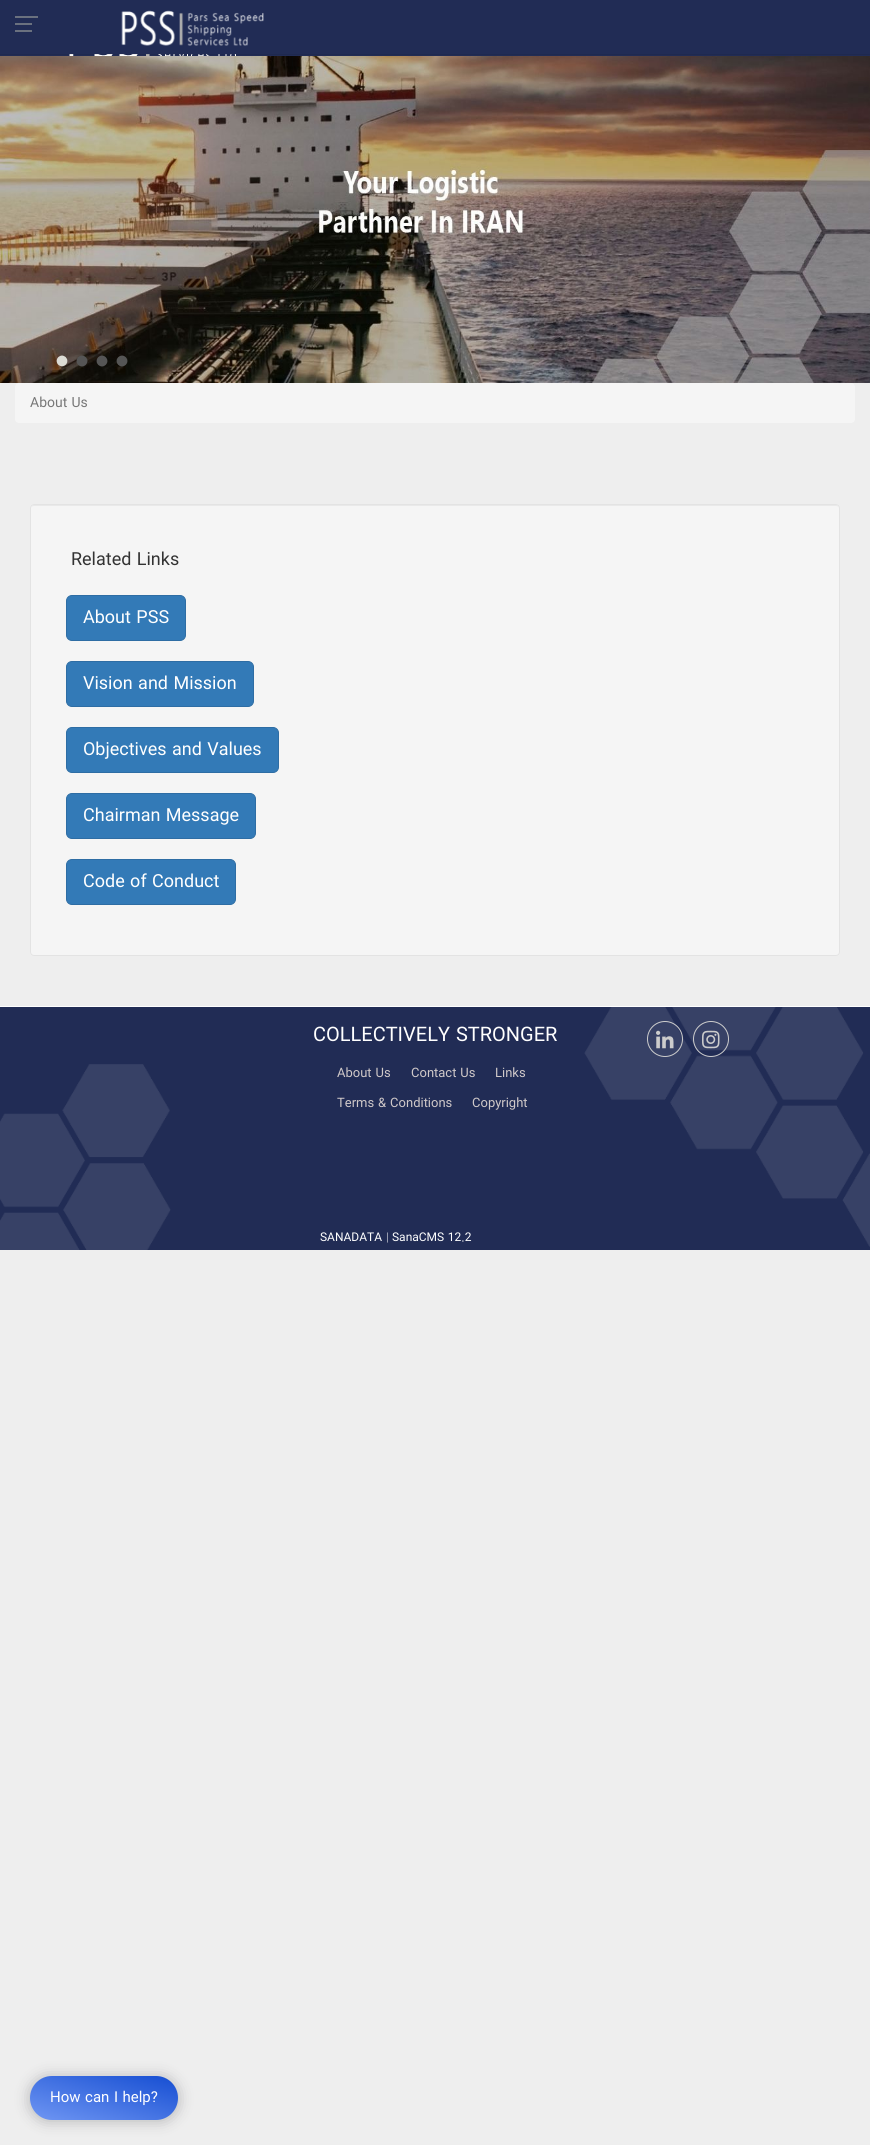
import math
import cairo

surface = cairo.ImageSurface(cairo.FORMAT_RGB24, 870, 2145)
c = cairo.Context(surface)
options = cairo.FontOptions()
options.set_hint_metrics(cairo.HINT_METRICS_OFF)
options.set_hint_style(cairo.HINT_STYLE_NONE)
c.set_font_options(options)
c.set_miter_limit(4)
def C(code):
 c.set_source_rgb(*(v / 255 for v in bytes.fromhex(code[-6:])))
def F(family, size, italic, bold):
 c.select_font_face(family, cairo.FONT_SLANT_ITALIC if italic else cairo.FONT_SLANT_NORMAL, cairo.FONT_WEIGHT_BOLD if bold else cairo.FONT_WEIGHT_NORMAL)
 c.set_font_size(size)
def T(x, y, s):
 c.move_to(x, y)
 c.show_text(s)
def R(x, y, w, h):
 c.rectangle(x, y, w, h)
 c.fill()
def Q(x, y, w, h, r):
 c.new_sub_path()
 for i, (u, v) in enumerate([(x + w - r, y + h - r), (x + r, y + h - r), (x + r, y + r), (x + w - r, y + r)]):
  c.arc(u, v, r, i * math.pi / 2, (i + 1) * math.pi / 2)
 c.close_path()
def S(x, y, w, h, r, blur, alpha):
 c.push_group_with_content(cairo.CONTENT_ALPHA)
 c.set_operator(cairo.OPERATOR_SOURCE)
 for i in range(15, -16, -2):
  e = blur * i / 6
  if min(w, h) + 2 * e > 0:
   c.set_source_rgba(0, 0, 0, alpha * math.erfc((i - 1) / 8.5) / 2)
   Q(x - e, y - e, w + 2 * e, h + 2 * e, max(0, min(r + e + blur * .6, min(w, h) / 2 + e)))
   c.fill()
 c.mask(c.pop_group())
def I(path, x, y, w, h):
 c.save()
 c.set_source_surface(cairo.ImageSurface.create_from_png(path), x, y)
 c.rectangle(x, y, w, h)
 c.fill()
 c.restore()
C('eeeeee')
c.paint()
C('212c55')
R(0,54,870,2)
I('2.png',69,54,167,2)
I('3.png',0,56,870,327)
C('000000')
S(0,0,870,54,0,.5,.3)
C('212c55')
R(0,0,870,54)
C('6a717f')
R(15,23,17,2)
R(15,16,23,2)
R(15,30,17,2)
I('1.png',121,10,143,36)
I('4.png',56,355,12,12)
I('5.png',76,355,12,12)
I('6.png',96,355,12,12)
I('7.png',116,355,12,12)
C('f5f5f5')
Q(15,383,840,40,4)
c.fill()
F('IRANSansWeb',14,0,0)
C('777777')
T(30,407,'About Us')
C('f5f5f5')
Q(30,504,810,452,4)
c.fill()
C('e9e9e9')
c.new_path()
c.move_to(34,506)
c.line_to(836,506)
c.curve_to(838,506,839,507,839,509)
c.curve_to(839,507,838,505,836,505)
c.line_to(34,505)
c.curve_to(32,505,31,507,31,509)
c.curve_to(31,507,32,506,34,506)
c.close_path()
c.fill()
Q(30.5,504.5,809,451,3.5)
C('e3e3e3')
c.set_line_width(1)
c.stroke()
F('IRANSansWeb',18,0,0)
C('333333')
T(71,565,'Related Links')
C('337ab7')
Q(66.5,595.5,119,45,5.5)
c.fill_preserve()
C('2e6da4')
c.stroke()
C('ffffff')
T(83,623,'About PSS')
C('337ab7')
Q(66.5,661.5,187,45,5.5)
c.fill_preserve()
C('2e6da4')
c.stroke()
C('ffffff')
T(83,689,'Vision and Mission')
C('337ab7')
Q(66.5,727.5,212,45,5.5)
c.fill_preserve()
C('2e6da4')
c.stroke()
C('ffffff')
T(83,755,'Objectives and Values')
C('337ab7')
Q(66.5,793.5,189,45,5.5)
c.fill_preserve()
C('2e6da4')
c.stroke()
C('ffffff')
T(83,821,'Chairman Message')
C('337ab7')
Q(66.5,859.5,169,45,5.5)
c.fill_preserve()
C('2e6da4')
c.stroke()
C('ffffff')
T(83,887,'Code of Conduct')
I('8.png',0,1007,870,243)
R(0,1006,870,1)
F('IRANSansWeb',20,0,0)
T(313,1041,'COLLECTIVELY STRONGER')
F('IRANSansWeb',13,0,0)
C('d0c9c9')
T(337,1077,'About Us')
T(411,1077,'Contact Us')
T(495,1077,'Links')
T(337,1107,'Terms & Conditions')
T(472,1107,'Copyright')
c.new_path()
c.arc(665,1039,17.5,0,2 * math.pi)
C('cccccc')
c.stroke()
I('9.png',656,1030,18,19)
c.arc(711,1039,17.5,0,2 * math.pi)
c.stroke()
I('10.png',702,1030,18,19)
F('IRANSansWeb',12,0,0)
C('ffffff')
T(320,1241,'SANADATA')
C('a6abbb')
T(386,1241,'|')
C('ffffff')
T(392,1241,'SanaCMS 12.2')
C('202124')
S(30,2077,148,44,22,7.5,.28)
gradient = cairo.LinearGradient(92,2138,116,2058)
gradient.add_color_stop_rgba(0,0.435,0.588,0.953,1)
gradient.add_color_stop_rgba(1,0.086,0.306,0.824,1)
c.set_source(gradient)
Q(30,2076,148,44,22)
c.fill()
F('IRANSansWeb',15,0,0)
C('ffffff')
T(50,2102,'How can I help?')
surface.write_to_png('o.png')
